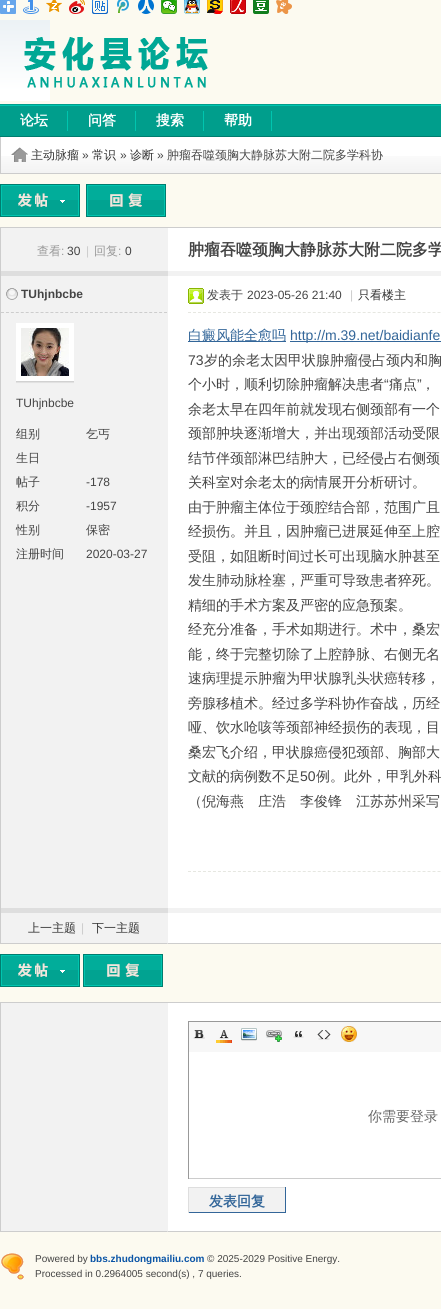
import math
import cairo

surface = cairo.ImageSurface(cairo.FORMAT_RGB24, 441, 1309)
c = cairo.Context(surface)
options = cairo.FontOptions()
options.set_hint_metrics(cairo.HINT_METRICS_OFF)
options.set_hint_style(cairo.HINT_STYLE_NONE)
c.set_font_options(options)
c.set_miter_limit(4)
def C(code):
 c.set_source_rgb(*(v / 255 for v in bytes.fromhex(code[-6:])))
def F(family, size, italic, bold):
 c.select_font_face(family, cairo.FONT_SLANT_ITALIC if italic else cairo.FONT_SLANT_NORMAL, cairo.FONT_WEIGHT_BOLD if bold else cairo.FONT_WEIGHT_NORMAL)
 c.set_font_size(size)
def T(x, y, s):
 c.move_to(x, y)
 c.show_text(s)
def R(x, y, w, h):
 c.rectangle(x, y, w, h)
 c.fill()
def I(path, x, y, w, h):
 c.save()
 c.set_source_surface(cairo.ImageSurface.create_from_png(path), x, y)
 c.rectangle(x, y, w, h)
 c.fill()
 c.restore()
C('fcfaf0')
c.paint()
I('1.png',0,0,16,14)
I('2.png',23,0,16,14)
I('3.png',46,0,16,12)
I('4.png',69,0,16,14)
I('5.png',92,0,16,14)
I('6.png',117,0,12,13)
I('7.png',138,0,16,14)
I('8.png',161,0,16,14)
I('9.png',184,0,16,14)
I('10.png',207,0,16,14)
I('11.png',230,0,16,14)
I('12.png',253,0,16,14)
I('13.png',276,0,16,14)
I('14.png',0,20,50,81)
I('15.png',24,37,184,51)
I('16.png',0,104,441,33)
C('00c5af')
R(67,111,1,20)
F('WenQuanYi Zen Hei',14,0,1)
C('ffffff')
T(20,125,'论坛')
C('00c5af')
R(135,111,1,20)
C('ffffff')
T(88,125,'问答')
C('00c5af')
R(203,111,1,20)
C('ffffff')
T(156,125,'搜索')
C('00c5af')
R(271,111,1,20)
C('ffffff')
T(224,125,'帮助')
R(1,137,440,19)
I('17.png',1,156,440,18)
I('18.png',11,147,17,15)
C('cccccc')
R(0,137,1,37)
F('WenQuanYi Zen Hei Medium',12,0,0)
C('333333')
T(31,159,'主动脉瘤')
F('Liberation Sans',12,0,0)
C('444444')
T(82,159,'»')
F('WenQuanYi Zen Hei Medium',12,0,0)
C('333333')
T(92,159,'常识')
F('Liberation Sans',12,0,0)
C('444444')
T(120,159,'»')
F('WenQuanYi Zen Hei Medium',12,0,0)
C('333333')
T(130,159,'诊断')
F('Liberation Sans',12,0,0)
C('444444')
T(157,159,'»')
F('WenQuanYi Zen Hei Medium',12,0,0)
T(167,159,'肿瘤吞噬颈胸大静脉苏大附二院多学科协')
I('19.png',0,184,80,33)
I('20.png',86,184,80,33)
C('ffffff')
R(168,228,273,715)
c.rectangle(.5,227.5,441,716)
C('cdcdcd')
c.set_line_width(1)
c.stroke()
C('f2f2f2')
R(1,228,167,43)
C('999999')
T(37,255,'查看')
F('Liberation Sans',12,0,0)
T(61,255,':')
C('444444')
T(67,255,'30')
C('cbcbcb')
T(86,255,'|')
F('WenQuanYi Zen Hei Medium',12,0,0)
C('999999')
T(94,255,'回复')
F('Liberation Sans',12,0,0)
T(118,255,':')
C('444444')
T(125,255,'0')
F('WenQuanYi Zen Hei',16,0,1)
T(188,255,'肿瘤吞噬颈胸大静脉苏大附二院多学')
C('dedede')
R(1,271,167,5)
C('f2f2f2')
R(168,271,273,5)
R(1,276,167,632)
c.new_path()
c.move_to(1,312.5)
c.line_to(167,312.5)
C('cdcdcd')
c.set_dash([3,1.94])
c.stroke()
I('21.png',6,288,12,12)
F('Liberation Sans',12,0,1)
C('444444')
T(21,298,'TUhjnbcbe')
C('ffffff')
R(16,323,58,58)
I('22.png',16,328,58,56)
F('Liberation Sans',12,0,0)
C('444444')
T(16,407,'TUhjnbcbe')
F('WenQuanYi Zen Hei Medium',12,0,0)
T(16,438,'组别')
T(86,438,'乞丐')
T(16,462,'生日')
T(16,486,'帖子')
F('Liberation Sans',12,0,0)
T(86,486,'-178')
F('WenQuanYi Zen Hei Medium',12,0,0)
T(16,510,'积分')
F('Liberation Sans',12,0,0)
T(86,510,'-1957')
F('WenQuanYi Zen Hei Medium',12,0,0)
T(16,534,'性别')
T(86,534,'保密')
T(16,558,'注册时间')
F('Liberation Sans',12,0,0)
T(86,558,'2020-03-27')
c.new_path()
c.move_to(188,312.5)
c.line_to(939,312.5)
C('e6e7e1')
c.set_dash([3,1.99])
c.stroke()
I('23.png',188,288,16,16)
F('WenQuanYi Zen Hei Medium',12,0,0)
C('444444')
T(207,299,'发表于')
F('Liberation Sans',12,0,0)
T(247,299,'2023-05-26 21:40')
C('cbcbcb')
T(350,299,'|')
F('WenQuanYi Zen Hei Medium',12,0,0)
C('333333')
T(358,299,'只看楼主')
C('336699')
R(188,341,98,1)
F('WenQuanYi Zen Hei Medium',14,0,0)
T(188,340,'白癜风能全愈吗')
R(290,341,151,1)
F('Liberation Sans',14,0,0)
T(290,340,'http://m.39.net/baidianfe')
C('444444')
T(188,365,'73')
F('WenQuanYi Zen Hei Medium',14,0,0)
T(204,365,'岁的余老太因甲状腺肿瘤侵占颈内和胸')
T(188,389,'个小时，顺利切除肿瘤解决患者')
F('Liberation Sans',14,0,0)
T(384,389,'“')
F('WenQuanYi Zen Hei Medium',14,0,0)
T(389,389,'痛点')
F('Liberation Sans',14,0,0)
T(417,389,'”')
F('WenQuanYi Zen Hei Medium',14,0,0)
T(421,389,'，')
T(188,414,'余老太早在四年前就发现右侧颈部有一个')
T(188,438,'颈部肿块逐渐增大，并出现颈部活动受限')
T(188,463,'结节伴颈部淋巴结肿大，已经侵占右侧颈')
T(188,487,'关科室对余老太的病情展开分析研讨。')
T(188,512,'由于肿瘤主体位于颈腔结合部，范围广且')
T(188,536,'经损伤。并且，因肿瘤已进展延伸至上腔')
T(188,561,'受阻，如阻断时间过长可出现脑水肿甚至')
T(188,585,'发生肺动脉栓塞，严重可导致患者猝死。')
T(188,610,'精细的手术方案及严密的应急预案。')
T(188,634,'经充分准备，手术如期进行。术中，桑宏')
T(188,659,'能，终于完整切除了上腔静脉、右侧无名')
T(188,683,'速病理提示肿瘤为甲状腺乳头状癌转移，')
T(188,708,'旁腺移植术。经过多学科协作奋战，历经')
T(188,732,'哑、饮水呛咳等颈部神经损伤的表现，目')
T(188,757,'桑宏飞介绍，甲状腺癌侵犯颈部、胸部大')
T(188,781,'文献的病例数不足')
F('Liberation Sans',14,0,0)
T(300,781,'50')
F('WenQuanYi Zen Hei Medium',14,0,0)
T(316,781,'例。此外，甲乳外科')
T(188,806,'（倪海燕　庄浩　李俊锋　江苏苏州采写')
c.new_path()
c.move_to(188,871.5)
c.line_to(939,871.5)
C('e6e7e1')
c.stroke()
C('dedede')
R(1,908,167,5)
C('f2f2f2')
R(168,908,273,5)
C('dedede')
R(167,943,1,1)
C('f2f2f2')
R(1,913,167,30)
F('WenQuanYi Zen Hei Medium',12,0,0)
C('333333')
T(28,932,'上一主题')
F('Liberation Sans',12,0,0)
C('cbcbcb')
T(81,932,'|')
F('WenQuanYi Zen Hei Medium',12,0,0)
C('333333')
T(92,932,'下一主题')
I('19.png',0,954,80,33)
I('20.png',83,954,80,33)
C('ffffff')
R(168,1003,273,228)
c.rectangle(.5,1002.5,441,229)
C('cdcdcd')
c.set_dash([])
c.stroke()
C('dedede')
R(167,1231,1,1)
C('f2f2f2')
R(1,1003,167,228)
C('f7f7f7')
R(189,1022,252,30)
C('999999')
R(188,1021,253,1)
R(188,1021,1,31)
I('24.png',193,1030,12,9)
I('25.png',216,1030,16,13)
I('26.png',241,1028,16,13)
I('27.png',266,1030,16,12)
I('28.png',293,1031,11,7)
I('29.png',317,1030,14,10)
I('30.png',341,1026,16,16)
C('cccccc')
R(188,1178,253,1)
C('999999')
R(188,1050,1,129)
F('WenQuanYi Zen Hei Medium',14,0,0)
C('666666')
T(368,1121,'你需要登录')
C('f2f2f2')
R(189,1188,96,24)
C('dedede')
R(188,1187,98,1)
C('336699')
R(285,1187,1,26)
R(188,1212,98,1)
C('dedede')
R(188,1187,1,26)
F('WenQuanYi Zen Hei',14,0,1)
C('336699')
T(209,1206,'发表回复')
I('31.png',1,1253,23,27)
F('Liberation Sans',10,0,0)
C('444444')
T(35,1262,'Powered by')
F('Liberation Sans',10,0,1)
C('0954a6')
T(90,1262,'bbs.zhudongmailiu.com')
F('Liberation Sans',10,0,0)
C('444444')
T(207,1262,'© 2025-2029 Positive Energy.')
T(35,1277,'Processed in 0.2964005 second(s) , 7 queries.')
surface.write_to_png('o.png')
